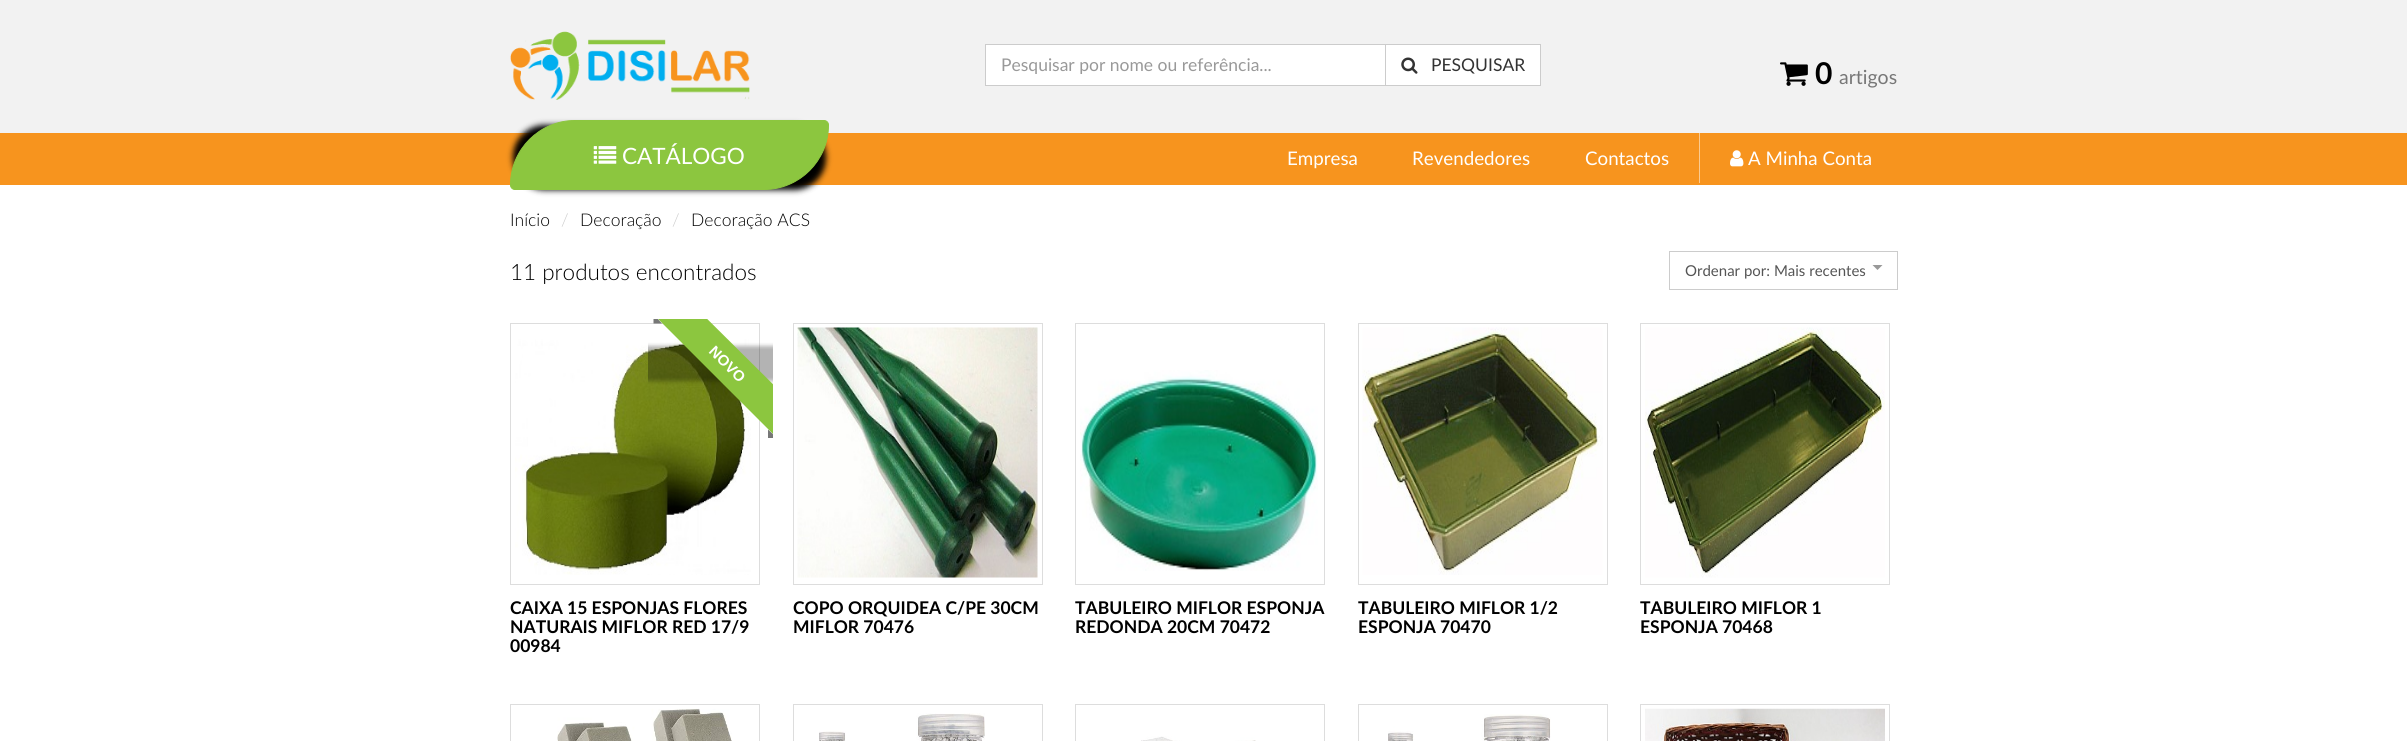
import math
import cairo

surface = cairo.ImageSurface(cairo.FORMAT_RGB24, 2407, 741)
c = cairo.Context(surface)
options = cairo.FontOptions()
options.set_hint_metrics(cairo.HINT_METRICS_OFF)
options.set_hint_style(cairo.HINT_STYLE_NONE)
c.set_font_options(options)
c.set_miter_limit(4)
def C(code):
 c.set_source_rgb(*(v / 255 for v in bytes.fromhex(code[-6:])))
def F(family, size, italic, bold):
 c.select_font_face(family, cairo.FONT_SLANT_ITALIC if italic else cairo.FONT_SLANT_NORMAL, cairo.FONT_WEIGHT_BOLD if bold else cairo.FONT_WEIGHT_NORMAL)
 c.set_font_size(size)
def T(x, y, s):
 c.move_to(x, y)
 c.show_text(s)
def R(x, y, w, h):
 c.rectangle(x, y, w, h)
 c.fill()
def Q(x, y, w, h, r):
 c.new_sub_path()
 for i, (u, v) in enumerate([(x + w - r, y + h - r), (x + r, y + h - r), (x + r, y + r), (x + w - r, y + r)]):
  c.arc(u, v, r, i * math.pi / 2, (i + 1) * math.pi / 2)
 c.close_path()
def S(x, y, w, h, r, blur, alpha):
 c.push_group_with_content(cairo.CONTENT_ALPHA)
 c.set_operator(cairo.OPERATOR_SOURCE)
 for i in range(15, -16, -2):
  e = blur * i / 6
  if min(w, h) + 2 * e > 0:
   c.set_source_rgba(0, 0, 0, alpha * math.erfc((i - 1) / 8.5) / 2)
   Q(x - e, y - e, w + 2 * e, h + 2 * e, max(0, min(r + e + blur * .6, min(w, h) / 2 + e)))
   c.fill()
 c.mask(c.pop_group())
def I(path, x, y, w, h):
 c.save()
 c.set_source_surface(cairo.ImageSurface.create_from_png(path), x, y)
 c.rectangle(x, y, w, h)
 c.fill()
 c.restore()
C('ffffff')
c.paint()
C('f2f2f2')
R(0,0,2407,133)
I('1.png',510,31,240,69)
C('ffffff')
c.rectangle(985.5,44.5,400,41)
c.fill_preserve()
C('cccccc')
c.set_line_width(1)
c.stroke()
F('Lato',17.5,0,0)
C('999999')
T(1001,71,'Pesquisar por nome ou referência...')
C('ffffff')
c.rectangle(1385.5,44.5,155,41)
c.fill_preserve()
C('cccccc')
c.stroke()
I('2.png',1401,57,17,17)
C('333333')
T(1431,71,'PESQUISAR')
I('3.png',1780,62,28,24)
F('Lato',30,0,1)
C('000000')
T(1815,84,'0')
F('Lato',19.5,0,0)
C('777777')
T(1839,84,'artigos')
C('f7941e')
R(0,133,2407,52)
C('000000')
S(513,125,313,65,63,3,1)
C('8cc63f')
c.new_path()
c.move_to(575,120.5)
c.line_to(824,120.5)
c.curve_to(826.5,120.5,828.5,122.5,828.5,125)
c.curve_to(828.5,160.5,799.5,189.5,764,189.5)
c.line_to(515,189.5)
c.curve_to(512.5,189.5,510.5,187.5,510.5,185)
c.curve_to(510.5,149.5,539.5,120.5,575,120.5)
c.close_path()
c.fill_preserve()
c.stroke()
I('4.png',593,146,24,18)
F('Lato',22.5,0,0)
C('ffffff')
T(622,164,'CATÁLOGO')
F('Lato',18.75,0,0)
T(1287,165,'Empresa')
T(1412,165,'Revendedores')
T(1585,165,'Contactos')
C('fbca8f')
R(1699,133,1,50)
I('5.png',1730,150,14,17)
C('ffffff')
T(1748,165,'A Minha Conta')
F('Lato Light',17.5,0,0)
C('000000')
T(510,226,'Início')
C('cccccc')
T(561,226,'/')
C('000000')
T(580,226,'Decoração')
C('cccccc')
T(672,226,'/')
C('000000')
T(691,226,'Decoração ACS')
F('Lato Light',22.5,0,0)
T(510,280,'11 produtos encontrados')
c.rectangle(1669.5,251.5,228,38)
C('cccccc')
c.stroke()
F('Lato',15,0,0)
C('555555')
T(1685,276,'Ordenar por: Mais recentes')
C('999999')
c.new_path()
c.move_to(1872.5,265)
c.line_to(1882.5,265)
c.line_to(1877.5,270)
c.close_path()
c.fill()
c.rectangle(510.5,323.5,249,261)
C('dddddd')
c.stroke()
I('6.png',515,339,236,236)
c.rectangle(793.5,323.5,249,261)
c.stroke()
I('7.png',797,327,241,251)
c.save()
c.rectangle(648,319,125,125)
c.clip()
C('000000')
S(640,346,175,35,0,2,.3)
c.restore()
c.save()
c.rectangle(648,319,125,125)
c.clip()
C('8cc63f')
c.new_path()
c.move_to(678,290)
c.line_to(802,413)
c.line_to(777,438)
c.line_to(653,314)
c.close_path()
c.fill()
C('777777')
c.new_path()
c.move_to(653.5,314.5)
c.line_to(662,323.5)
c.line_to(653.5,323.5)
c.close_path()
c.fill()
c.restore()
F('Liberation Sans',15,0,1)
C('ffffff')
c.save()
c.translate(708,352)
c.rotate(45 * math.pi / 180)
T(0,0,'NOVO')
c.restore()
c.save()
c.rectangle(648,319,125,125)
c.clip()
C('777777')
c.new_path()
c.move_to(768,429.5)
c.line_to(777,438)
c.line_to(768,438)
c.close_path()
c.fill()
c.restore()
F('Lato',17.5,0,1)
C('000000')
T(510,614,'CAIXA 15 ESPONJAS FLORES')
T(510,633,'NATURAIS MIFLOR RED 17/9')
T(510,652,'00984')
T(793,614,'COPO ORQUIDEA C/PE 30CM')
T(793,633,'MIFLOR 70476')
c.rectangle(1075.5,323.5,249,261)
C('dddddd')
c.stroke()
I('8.png',1080,370,238,201)
C('000000')
T(1075,614,'TABULEIRO MIFLOR ESPONJA')
T(1075,633,'REDONDA 20CM 70472')
c.rectangle(1358.5,323.5,249,261)
C('dddddd')
c.stroke()
I('9.png',1362,327,241,248)
C('000000')
T(1358,614,'TABULEIRO MIFLOR 1/2')
T(1358,633,'ESPONJA 70470')
c.rectangle(1640.5,323.5,249,261)
C('dddddd')
c.stroke()
I('10.png',1645,327,240,251)
C('000000')
T(1640,614,'TABULEIRO MIFLOR 1')
T(1640,633,'ESPONJA 70468')
c.rectangle(510.5,704.5,249,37)
C('dddddd')
c.stroke()
I('11.png',557,708,175,33)
c.rectangle(793.5,704.5,249,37)
c.stroke()
I('12.png',819,713,166,28)
c.rectangle(1075.5,704.5,249,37)
c.stroke()
I('13.png',1141,736,115,5)
c.rectangle(1358.5,704.5,249,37)
c.stroke()
I('14.png',1388,714,163,27)
c.rectangle(1640.5,704.5,249,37)
c.stroke()
I('15.png',1645,708,240,33)
surface.write_to_png('o.png')
